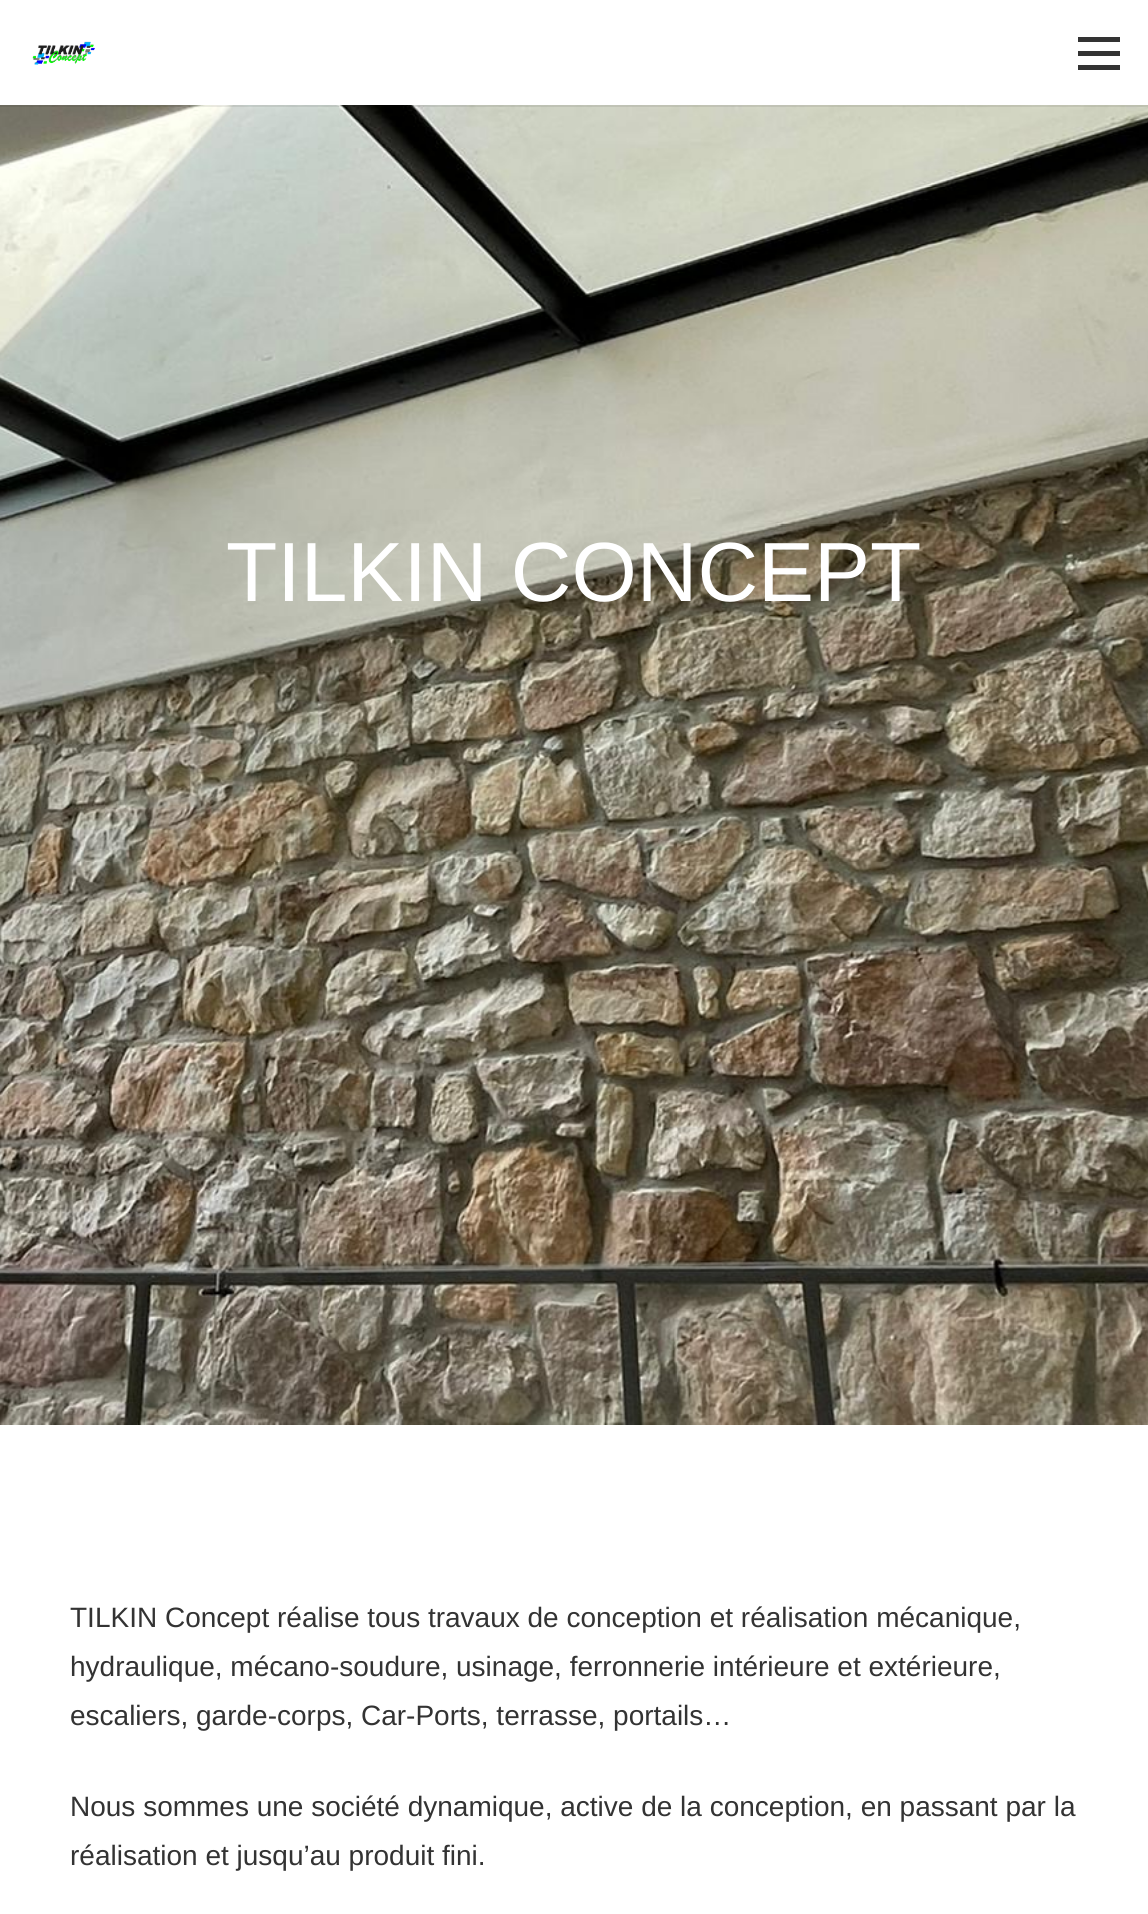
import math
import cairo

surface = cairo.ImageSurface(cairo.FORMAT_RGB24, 1148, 1914)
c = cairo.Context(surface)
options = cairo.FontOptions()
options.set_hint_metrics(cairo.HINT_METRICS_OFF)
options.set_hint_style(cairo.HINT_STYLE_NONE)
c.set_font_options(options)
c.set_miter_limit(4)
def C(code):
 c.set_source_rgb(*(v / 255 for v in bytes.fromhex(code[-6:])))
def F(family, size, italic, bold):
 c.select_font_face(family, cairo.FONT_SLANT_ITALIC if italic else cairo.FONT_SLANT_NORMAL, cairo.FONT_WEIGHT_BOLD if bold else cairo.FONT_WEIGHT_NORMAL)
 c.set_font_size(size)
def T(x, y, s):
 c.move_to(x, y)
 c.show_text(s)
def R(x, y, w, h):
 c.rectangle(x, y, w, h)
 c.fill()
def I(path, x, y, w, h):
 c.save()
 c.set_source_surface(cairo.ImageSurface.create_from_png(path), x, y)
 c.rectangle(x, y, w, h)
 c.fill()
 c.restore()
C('ffffff')
c.paint()
I('2.png',0,105,1148,1320)
c.set_source_rgba(0,0,0,0.08)
R(0,105,1148,2)
I('1.png',32,41,63,24)
C('333333')
R(1078,51,42,5)
R(1078,37,42,5)
R(1078,65,42,5)
F('Liberation Sans',84,0,0)
C('ffffff')
T(226,601,'TILKIN CONCEPT')
F('Liberation Sans',28,0,0)
C('333333')
T(70,1627,'TILKIN Concept réalise tous travaux de conception et réalisation mécanique,')
T(70,1676,'hydraulique, mécano-soudure, usinage, ferronnerie intérieure et extérieure,')
T(70,1725,'escaliers, garde-corps, Car-Ports, terrasse, portails…')
T(70,1816,'Nous sommes une société dynamique, active de la conception, en passant par la')
T(70,1865,'réalisation et jusqu’au produit fini.')
surface.write_to_png('o.png')
